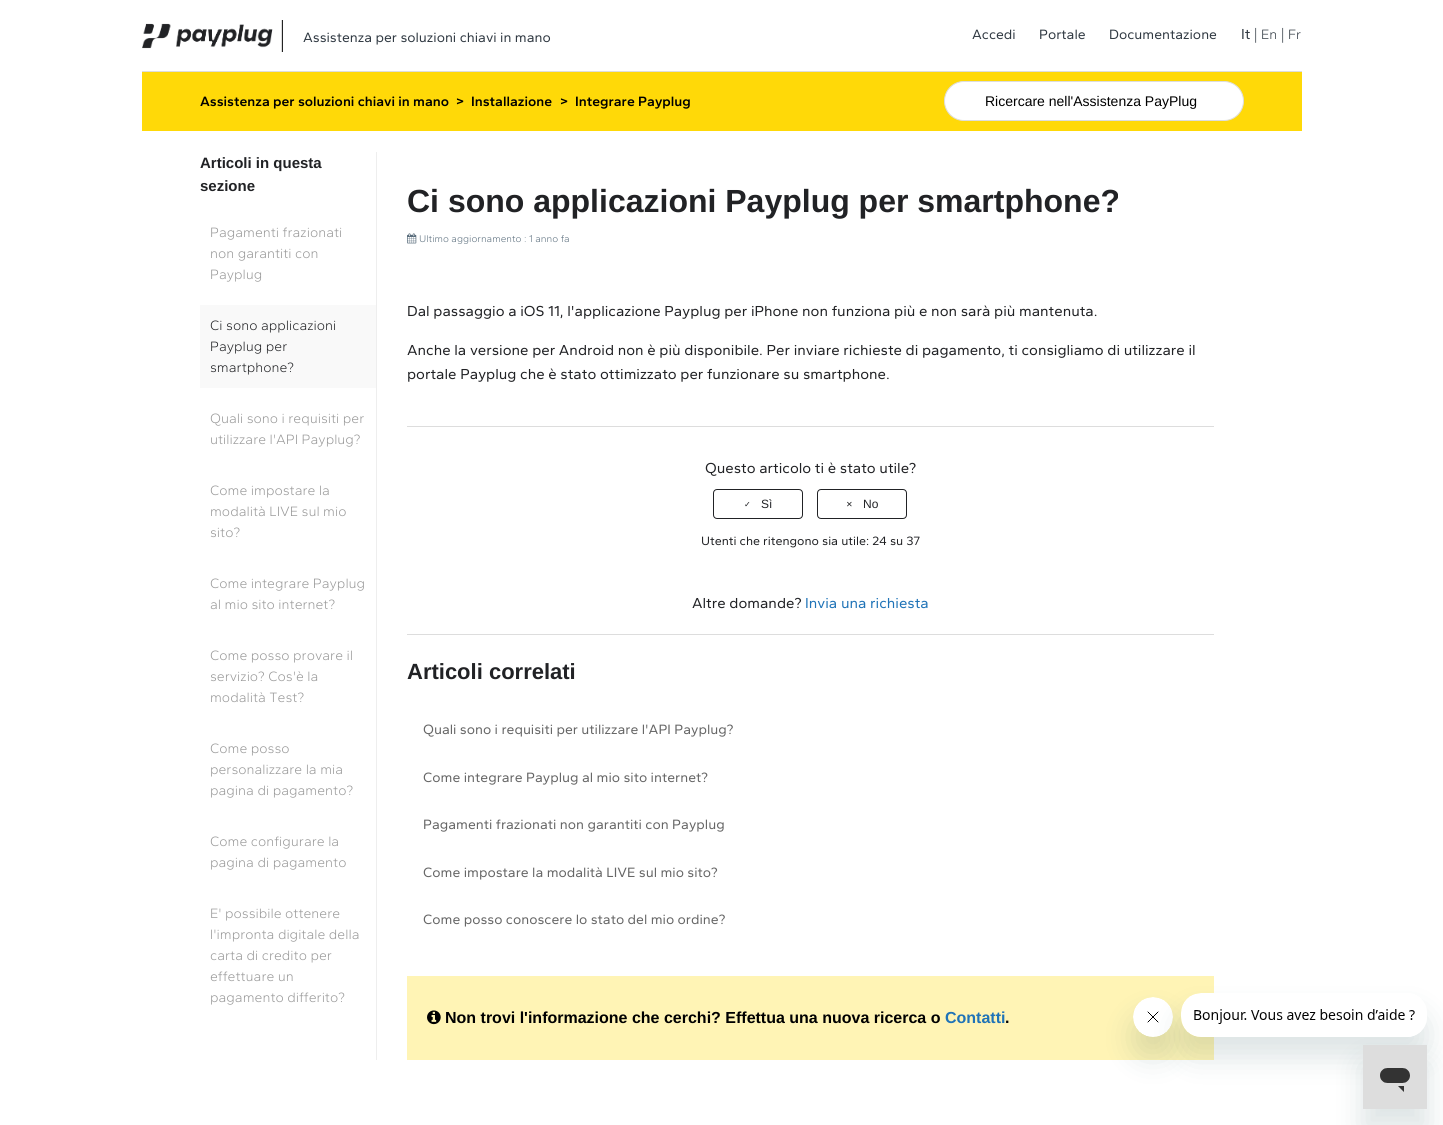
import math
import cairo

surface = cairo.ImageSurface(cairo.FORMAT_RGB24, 1443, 1125)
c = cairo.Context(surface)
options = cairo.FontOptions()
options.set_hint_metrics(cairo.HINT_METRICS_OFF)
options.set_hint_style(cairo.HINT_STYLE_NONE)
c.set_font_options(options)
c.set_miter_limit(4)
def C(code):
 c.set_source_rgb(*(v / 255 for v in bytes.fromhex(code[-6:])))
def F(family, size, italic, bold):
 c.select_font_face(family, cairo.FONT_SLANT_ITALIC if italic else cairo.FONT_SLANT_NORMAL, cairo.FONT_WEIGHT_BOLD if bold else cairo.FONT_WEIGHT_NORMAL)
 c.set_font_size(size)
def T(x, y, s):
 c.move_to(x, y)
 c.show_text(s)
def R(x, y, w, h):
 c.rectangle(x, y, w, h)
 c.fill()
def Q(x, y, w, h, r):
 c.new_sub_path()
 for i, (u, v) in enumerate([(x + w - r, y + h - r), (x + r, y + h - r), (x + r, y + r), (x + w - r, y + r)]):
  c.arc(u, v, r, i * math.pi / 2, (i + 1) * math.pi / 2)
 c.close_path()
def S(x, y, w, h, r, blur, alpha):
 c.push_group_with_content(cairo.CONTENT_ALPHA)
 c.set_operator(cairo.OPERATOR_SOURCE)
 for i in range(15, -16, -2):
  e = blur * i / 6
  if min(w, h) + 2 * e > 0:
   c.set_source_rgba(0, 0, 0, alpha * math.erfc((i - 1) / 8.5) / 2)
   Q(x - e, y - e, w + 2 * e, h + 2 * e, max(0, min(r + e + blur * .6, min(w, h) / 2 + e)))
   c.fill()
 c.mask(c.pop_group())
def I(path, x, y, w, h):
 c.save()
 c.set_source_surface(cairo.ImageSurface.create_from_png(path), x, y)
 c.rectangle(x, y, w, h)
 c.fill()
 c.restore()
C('ffffff')
c.paint()
I('1.png',142,20,141,32)
F('Gantari',14,0,0)
C('313a43')
T(303,42,'Assistenza per soluzioni chiavi in mano')
T(972,39,'Accedi')
T(1039,39,'Portale')
T(1109,39,'Documentazione')
F('Gantari',15,0,0)
T(1241,39,'It')
F('Gantari Light',15,0,0)
T(1254,39,'|')
F('Gantari Light',14,0,0)
T(1261,39,'En')
F('Gantari Light',15,0,0)
T(1281,39,'|')
F('Gantari Light',14,0,0)
T(1288,39,'Fr')
C('dddddd')
R(142,71,1160,1)
C('ffd908')
R(142,72,1160,59)
F('Gantari SemiBold',14,0,0)
C('000000')
T(200,106,'Assistenza per soluzioni chiavi in mano')
T(456,106,'>')
T(471,106,'Installazione')
T(560,106,'>')
T(575,106,'Integrare Payplug')
C('ffffff')
Q(944.5,81.5,299,39,19.5)
c.fill_preserve()
C('dddddd')
c.set_line_width(1)
c.stroke()
F('Liberation Sans',14,0,0)
C('000000')
T(985,106,'Ricercare nell\'Assistenza PayPlug')
C('eeeeee')
R(376,152,1,908)
F('Liberation Sans',15,0,1)
C('212225')
T(200,168,'Articoli in questa')
T(200,191,'sezione')
F('Gantari Light',14,0,0)
C('999999')
T(210,237,'Pagamenti frazionati')
T(210,258,'non garantiti con')
T(210,279,'Payplug')
C('f9f9f9')
R(200,305,176,83)
C('212225')
T(210,330,'Ci sono applicazioni')
T(210,351,'Payplug per')
T(210,372,'smartphone?')
C('999999')
T(210,423,'Quali sono i requisiti per')
T(210,444,'utilizzare l\'API Payplug?')
T(210,495,'Come impostare la')
T(210,516,'modalità LIVE sul mio')
T(210,537,'sito?')
T(210,588,'Come integrare Payplug')
T(210,609,'al mio sito internet?')
T(210,660,'Come posso provare il')
T(210,681,'servizio? Cos\'è la')
T(210,702,'modalità Test?')
T(210,753,'Come posso')
T(210,774,'personalizzare la mia')
T(210,795,'pagina di pagamento?')
T(210,846,'Come configurare la')
T(210,867,'pagina di pagamento')
T(210,918,'E\' possibile ottenere')
T(210,939,'l\'impronta digitale della')
T(210,960,'carta di credito per')
T(210,981,'effettuare un')
T(210,1002,'pagamento differito?')
F('Liberation Sans',32,0,1)
C('212225')
T(407,212,'Ci sono applicazioni Payplug per smartphone?')
I('2.png',407,233,10,11)
F('Gantari Light',10,0,0)
C('5a6d7c')
T(419,242,'Ultimo aggiornamento : 1 anno fa')
F('Gantari',15,0,0)
C('212225')
T(407,316,'Dal passaggio a iOS 11, l\'applicazione Payplug per iPhone non funziona più e non sarà più mantenuta.')
T(407,355,'Anche la versione per Android non è più disponibile. Per inviare richieste di pagamento, ti consigliamo di utilizzare il')
T(407,379,'portale Payplug che è stato ottimizzato per funzionare su smartphone.')
C('dddddd')
R(407,426,807,1)
C('212225')
T(705,473,'Questo articolo ti è stato utile?')
Q(713.5,489.5,89,29,3.5)
c.stroke()
F('DejaVu Sans',8,0,0)
T(744,507,'✓')
F('Liberation Sans',12,0,0)
T(761,508,'Sì')
Q(817.5,489.5,89,29,3.5)
c.stroke()
F('DejaVu Sans',8,0,0)
T(846,507,'✕')
F('Liberation Sans',12,0,0)
T(863,508,'No')
F('Gantari',12.5,0,0)
T(701,545,'Utenti che ritengono sia utile: 24 su 37')
F('Gantari',15,0,0)
T(692,608,'Altre domande?')
C('1f73b7')
T(805,608,'Invia una richiesta')
C('dddddd')
R(407,634,807,1)
F('Liberation Sans',22,0,1)
C('212225')
T(407,679,'Articoli correlati')
F('Gantari',14,0,0)
C('666666')
T(423,734,'Quali sono i requisiti per utilizzare l\'API Payplug?')
T(423,782,'Come integrare Payplug al mio sito internet?')
T(423,829,'Pagamenti frazionati non garantiti con Payplug')
T(423,877,'Come impostare la modalità LIVE sul mio sito?')
T(423,924,'Come posso conoscere lo stato del mio ordine?')
C('fff4b5')
R(407,976,807,84)
I('3.png',427,1010,14,15)
F('Liberation Sans',16,0,1)
C('000000')
T(445,1023,'Non trovi l\'informazione che cerchi? Effettua una nuova ricerca o')
C('1f73b7')
T(945,1023,'Contatti')
C('000000')
T(1005,1023,'.')
C('17494d')
S(1133,1017,40,40,20,15,.15)
I('5.png',1133,997,40,40)
c.save()
c.set_fill_rule(cairo.FILL_RULE_EVEN_ODD)
c.new_path()
c.move_to(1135,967)
c.line_to(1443,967)
c.line_to(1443,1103)
c.line_to(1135,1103)
c.close_path()
c.move_to(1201,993)
c.line_to(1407,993)
c.curve_to(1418,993,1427,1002,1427,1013)
c.line_to(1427,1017)
c.curve_to(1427,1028,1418,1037,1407,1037)
c.line_to(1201,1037)
c.curve_to(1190,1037,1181,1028,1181,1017)
c.line_to(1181,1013)
c.curve_to(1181,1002,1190,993,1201,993)
c.close_path()
c.clip()
S(1181,1013,246,44,20,15,.15)
c.restore()
I('4.png',1181,993,240,44)
S(1363,1065,64,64,0,15,.15)
I('6.png',1363,1045,64,64)
surface.write_to_png('o.png')
